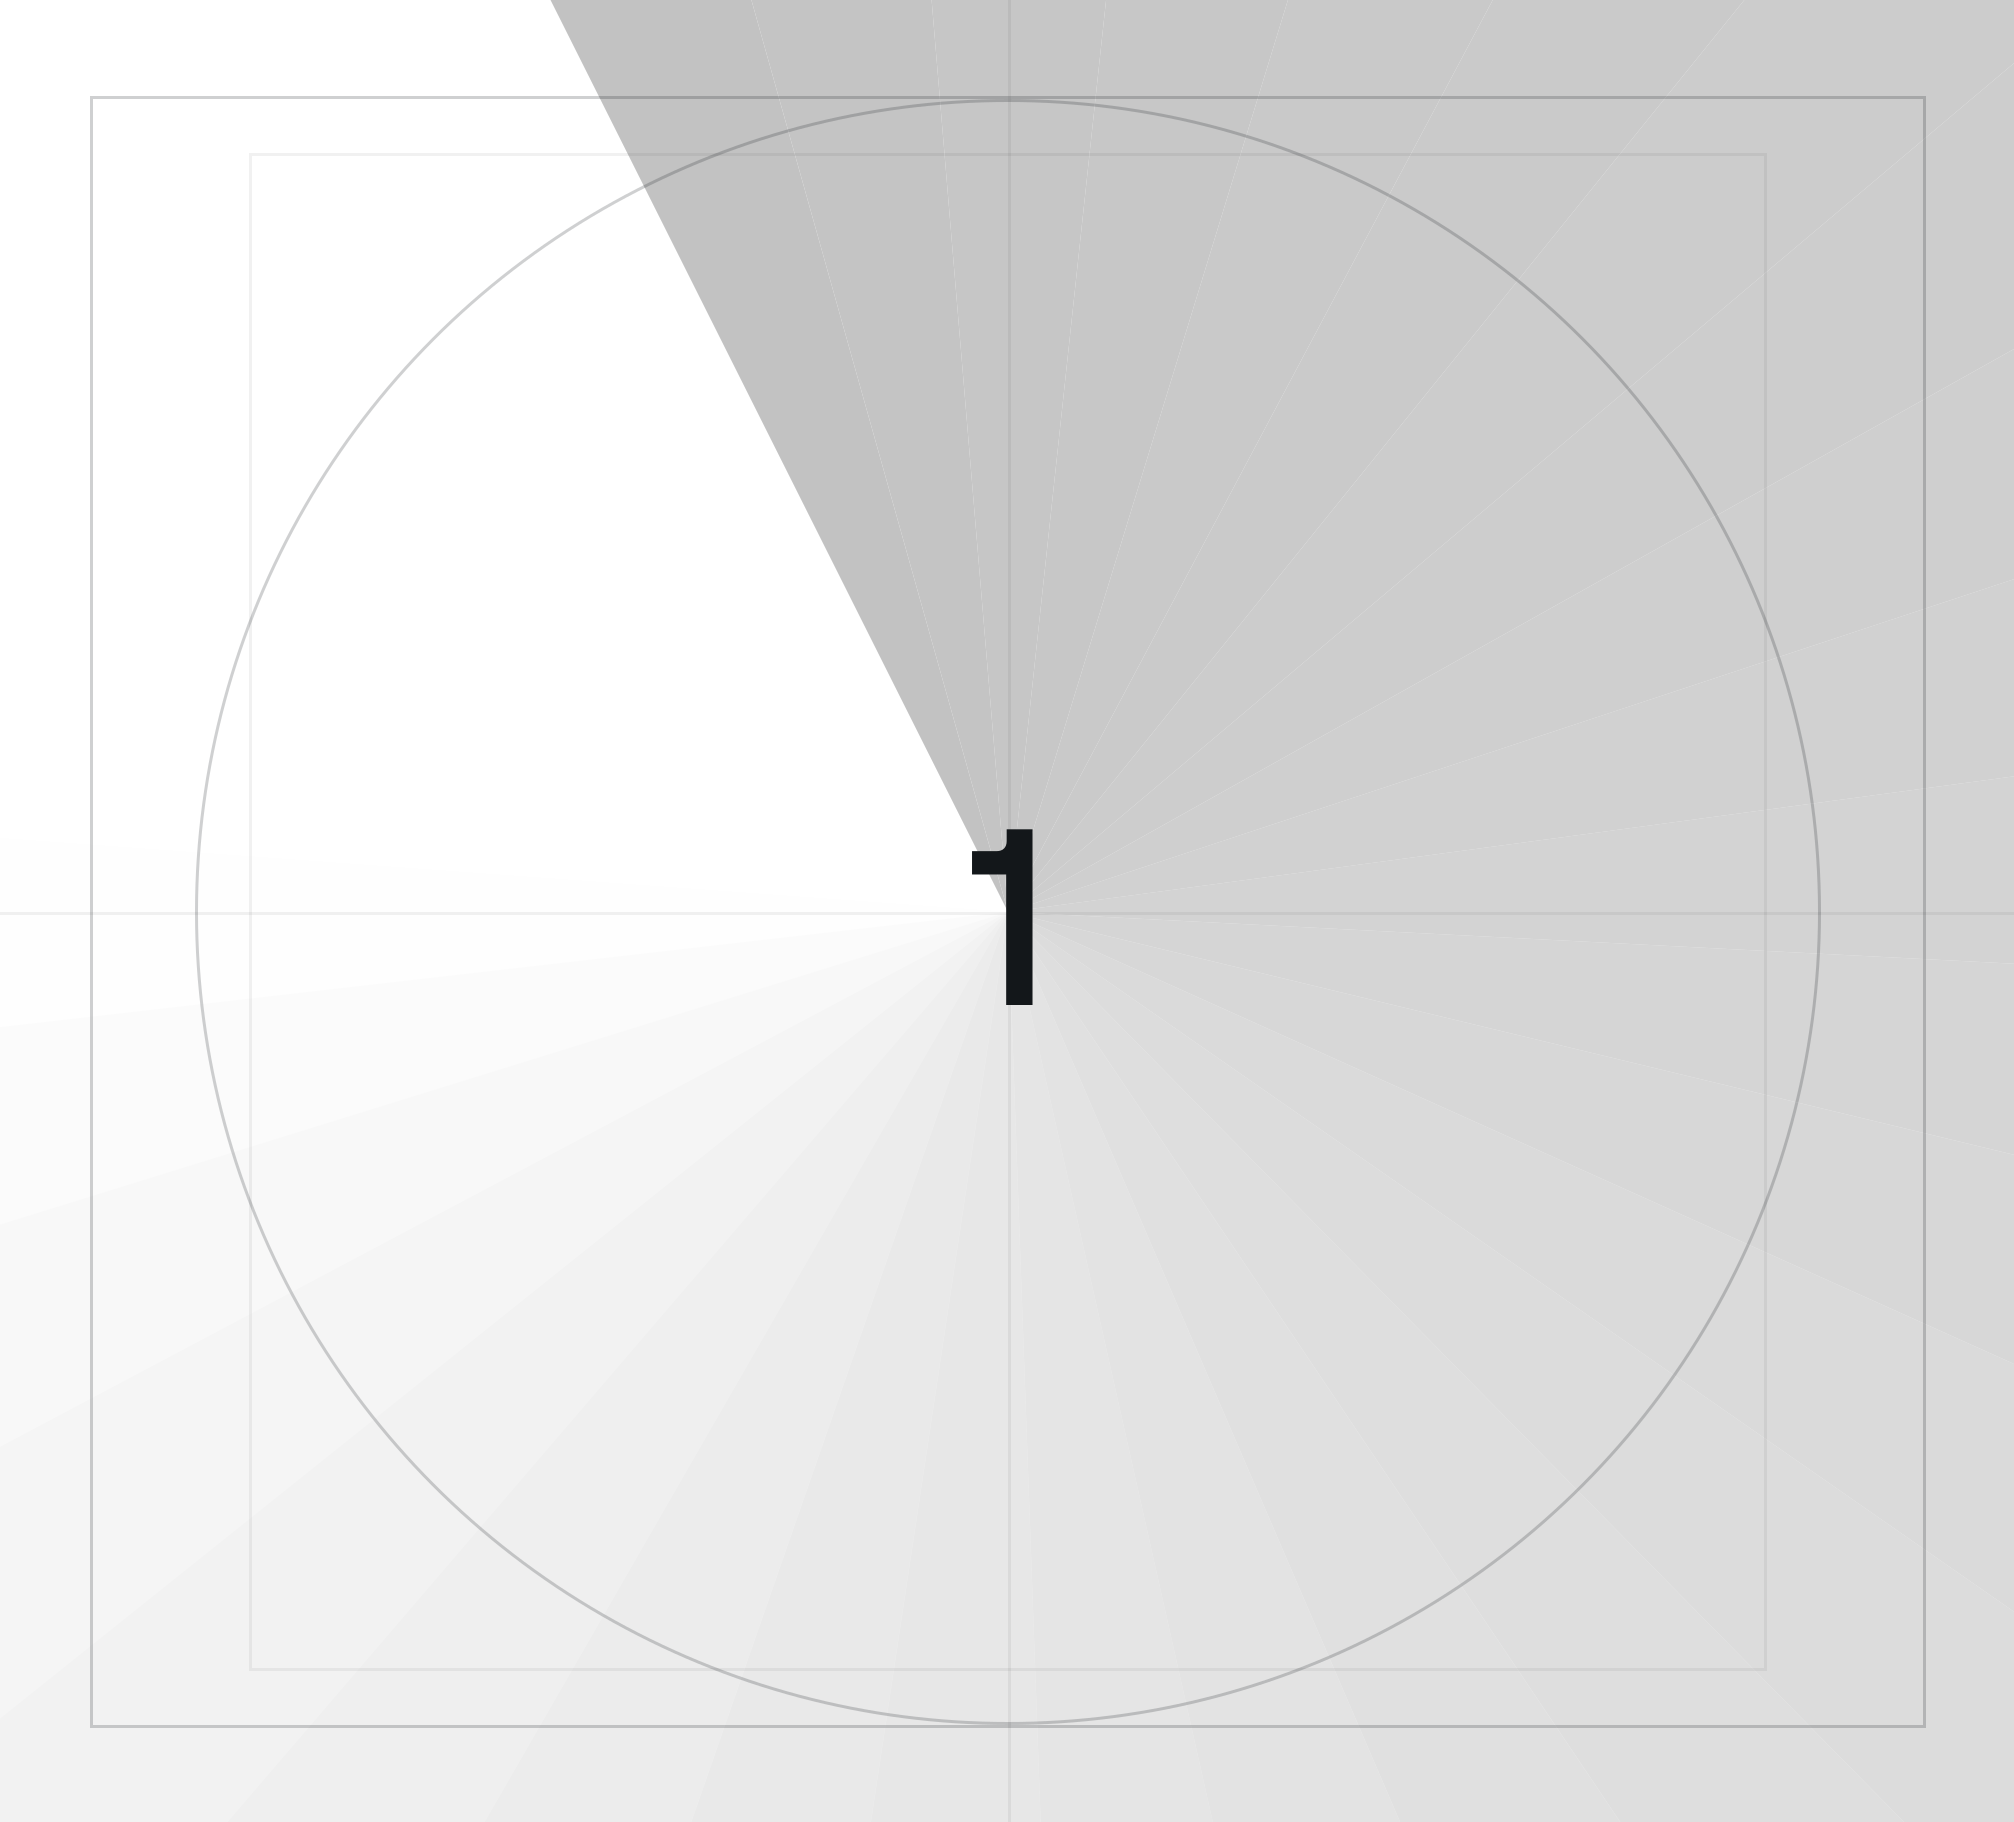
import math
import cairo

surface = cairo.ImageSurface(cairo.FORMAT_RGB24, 2014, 1822)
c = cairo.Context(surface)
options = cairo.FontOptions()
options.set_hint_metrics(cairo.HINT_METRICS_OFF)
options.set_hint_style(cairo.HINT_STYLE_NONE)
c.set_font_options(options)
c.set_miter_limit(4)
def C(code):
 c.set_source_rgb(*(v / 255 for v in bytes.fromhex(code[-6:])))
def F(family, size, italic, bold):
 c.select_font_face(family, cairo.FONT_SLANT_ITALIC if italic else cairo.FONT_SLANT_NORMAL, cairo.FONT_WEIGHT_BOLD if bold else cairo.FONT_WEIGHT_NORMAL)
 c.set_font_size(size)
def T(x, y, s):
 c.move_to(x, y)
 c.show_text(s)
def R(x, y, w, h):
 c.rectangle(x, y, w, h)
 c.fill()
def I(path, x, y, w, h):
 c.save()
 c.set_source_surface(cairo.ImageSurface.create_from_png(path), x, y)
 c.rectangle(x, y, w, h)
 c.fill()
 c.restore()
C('ffffff')
c.paint()
I('1.png',0,0,2014,1822)
c.set_source_rgba(0.075,0.09,0.102,0.06)
R(0,912,2014,3)
R(1008,0,3,1822)
c.rectangle(91.5,97.5,1833,1629)
c.set_source_rgba(0.075,0.09,0.102,0.2)
c.set_line_width(3)
c.stroke()
c.arc(1008,912,811.5,0,2 * math.pi)
c.stroke()
c.rectangle(250.5,154.5,1515,1515)
c.set_source_rgba(0.075,0.09,0.102,0.06)
c.stroke()
F('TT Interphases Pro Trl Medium',251,0,0)
C('13171a')
T(964,1005,'1')
surface.write_to_png('o.png')
